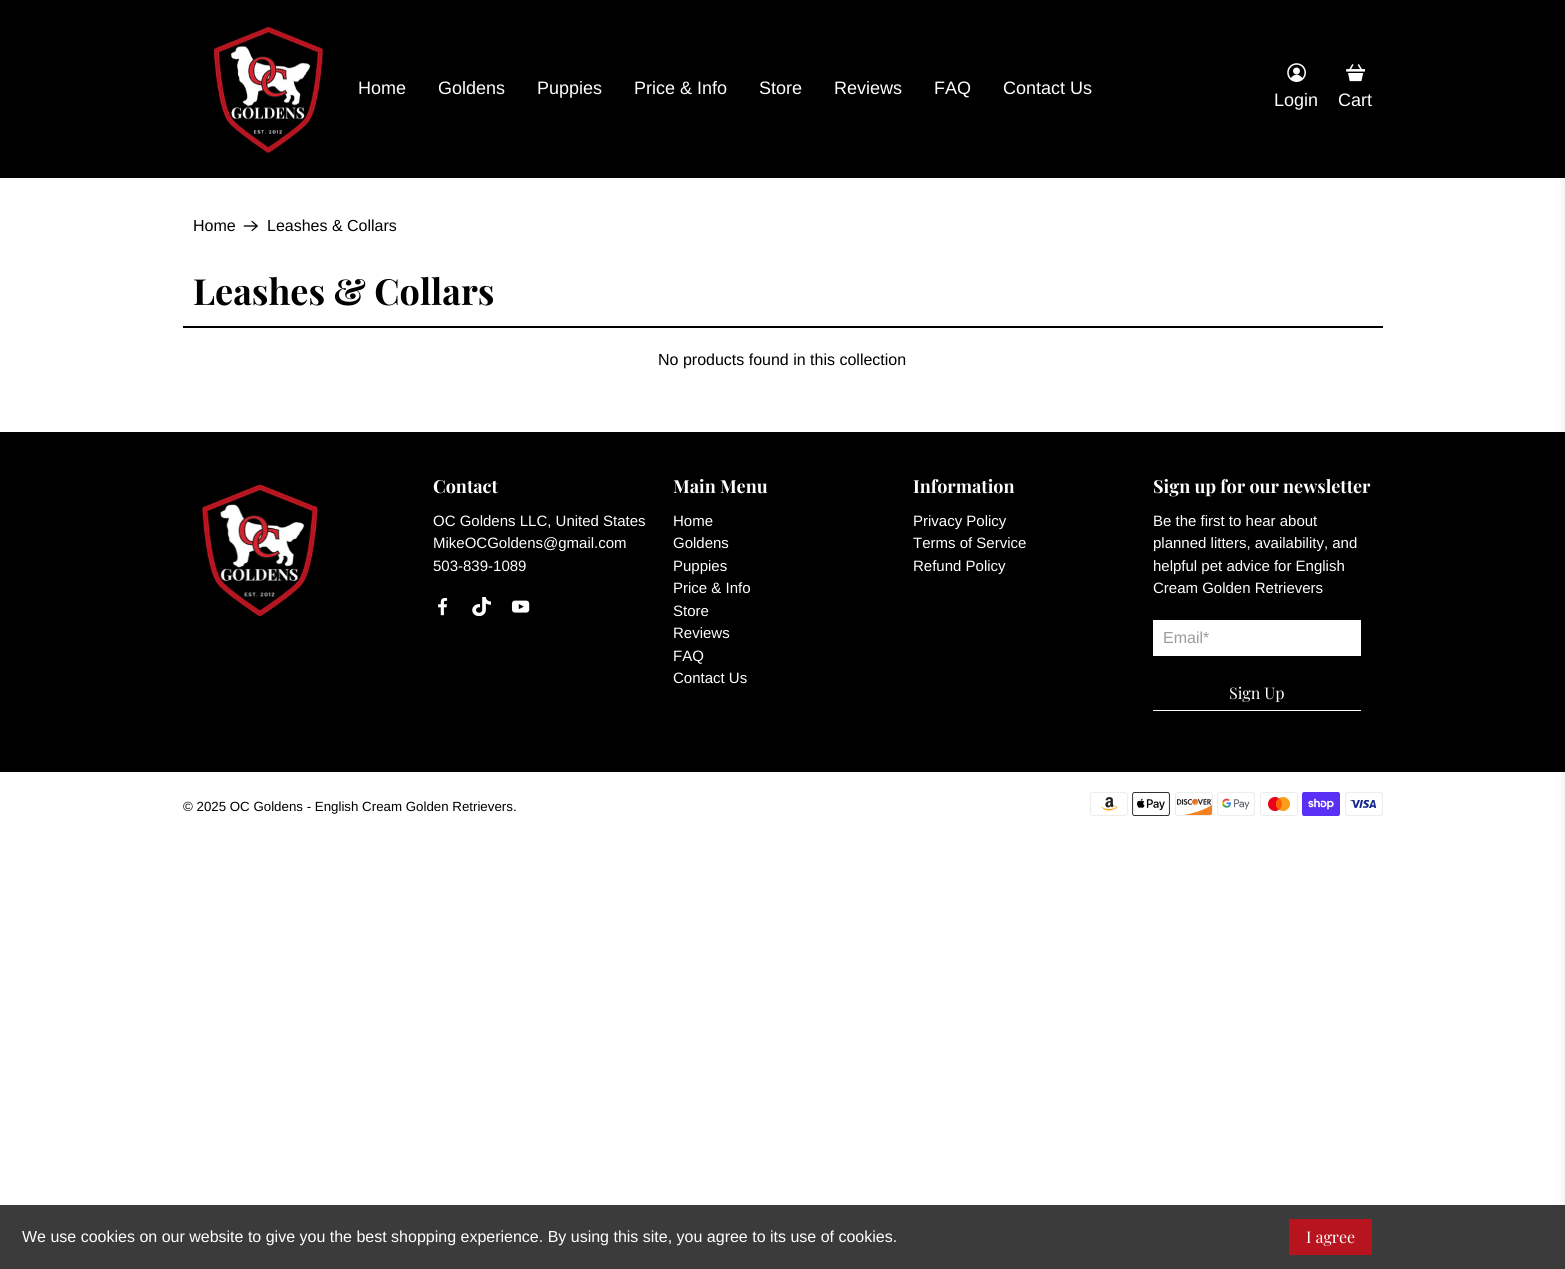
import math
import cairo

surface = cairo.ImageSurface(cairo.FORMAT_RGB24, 1565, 1269)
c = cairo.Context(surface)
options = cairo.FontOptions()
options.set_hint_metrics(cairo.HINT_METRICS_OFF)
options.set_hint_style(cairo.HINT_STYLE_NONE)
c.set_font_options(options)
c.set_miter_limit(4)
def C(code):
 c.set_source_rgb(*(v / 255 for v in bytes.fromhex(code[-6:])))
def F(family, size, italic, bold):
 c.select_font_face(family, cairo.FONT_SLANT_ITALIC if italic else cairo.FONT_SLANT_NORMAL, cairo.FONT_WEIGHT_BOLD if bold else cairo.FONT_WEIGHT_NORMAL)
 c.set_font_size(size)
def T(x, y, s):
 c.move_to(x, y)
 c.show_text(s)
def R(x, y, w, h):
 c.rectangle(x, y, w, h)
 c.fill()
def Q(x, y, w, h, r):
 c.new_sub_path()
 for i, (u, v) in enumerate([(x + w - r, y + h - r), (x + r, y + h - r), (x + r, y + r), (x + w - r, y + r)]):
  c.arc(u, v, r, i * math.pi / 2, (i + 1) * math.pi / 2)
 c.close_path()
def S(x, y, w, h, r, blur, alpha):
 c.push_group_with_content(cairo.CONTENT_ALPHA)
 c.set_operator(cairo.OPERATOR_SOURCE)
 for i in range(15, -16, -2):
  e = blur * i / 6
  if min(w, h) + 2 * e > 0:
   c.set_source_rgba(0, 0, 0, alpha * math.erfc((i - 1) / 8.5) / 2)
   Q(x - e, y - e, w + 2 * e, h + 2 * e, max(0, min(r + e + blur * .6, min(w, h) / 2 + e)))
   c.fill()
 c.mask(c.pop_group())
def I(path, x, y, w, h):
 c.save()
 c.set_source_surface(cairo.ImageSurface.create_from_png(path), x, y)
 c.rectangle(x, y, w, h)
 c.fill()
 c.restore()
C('ffffff')
c.paint()
C('000000')
R(0,0,1565,178)
I('1.png',212,26,112,128)
F('Liberation Sans',18,0,0)
C('ffffff')
T(358,94,'Home')
T(438,94,'Goldens')
T(537,94,'Puppies')
T(634,94,'Price & Info')
T(759,94,'Store')
T(834,94,'Reviews')
T(934,94,'FAQ')
T(1003,94,'Contact Us')
I('2.png',1287,63,19,19)
T(1274,106,'Login')
I('3.png',1346,64,19,18)
T(1338,106,'Cart')
C('000000')
R(0,432,1565,340)
C('3b3b3b')
R(0,1205,1565,64)
C('0a0a0a')
S(1565,8,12,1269,0,4,.1)
F('Liberation Sans',16,0,0)
C('000000')
T(193,231,'Home')
I('4.png',243,220,15,12)
T(267,231,'Leashes & Collars')
F('Playfair Display',36,0,1)
T(193,305,'Leashes & Collars')
R(183,326,1200,2)
F('Liberation Sans',16,0,0)
T(658,365,'No products found in this collection')
I('5.png',201,484,118,134)
F('Playfair Display',18,0,1)
C('ffffff')
T(433,493,'Contact')
F('Liberation Sans',15,0,0)
T(433,526,'OC Goldens LLC, United States')
T(433,548,'MikeOCGoldens@gmail.com')
T(433,571,'503-839-1089')
I('6.png',438,598,10,18)
I('7.png',472,597,19,19)
I('8.png',511,600,19,13)
F('Playfair Display',18,0,1)
T(673,493,'Main Menu')
F('Liberation Sans',15,0,0)
T(673,526,'Home')
T(673,548,'Goldens')
T(673,571,'Puppies')
T(673,593,'Price & Info')
T(673,616,'Store')
T(673,638,'Reviews')
T(673,661,'FAQ')
T(673,683,'Contact Us')
F('Playfair Display',18,0,1)
T(913,493,'Information')
F('Liberation Sans',15,0,0)
T(913,526,'Privacy Policy')
T(913,548,'Terms of Service')
T(913,571,'Refund Policy')
F('Playfair Display',18,0,1)
T(1153,493,'Sign up for our newsletter')
F('Liberation Sans',15,0,0)
T(1153,526,'Be the first to hear about')
T(1153,548,'planned litters, availability, and')
T(1153,571,'helpful pet advice for English')
T(1153,593,'Cream Golden Retrievers')
R(1153,620,208,36)
F('Liberation Sans',16,0,0)
C('9b9b9b')
T(1163,643,'Email*')
C('ffffff')
R(1153,710,208,1)
F('Playfair Display',16,0,0)
T(1229,699,'Sign Up')
F('Liberation Sans',13.3,0,0)
C('000000')
T(183,811,'© 2025 OC Goldens - English Cream Golden Retrievers.')
I('9.png',1090,792,38,24)
I('10.png',1132,792,38,24)
I('11.png',1175,792,38,24)
I('12.png',1217,792,38,24)
I('13.png',1260,792,38,24)
I('14.png',1302,792,38,24)
I('15.png',1345,792,38,24)
F('Liberation Sans',16,0,0)
C('ffffff')
T(22,1242,'We use cookies on our website to give you the best shopping experience. By using this site, you agree to its use of cookies.')
C('b8141f')
R(1289,1219,83,36)
F('Playfair Display',16,0,0)
C('ffffff')
T(1306,1243,'I agree')
surface.write_to_png('o.png')
